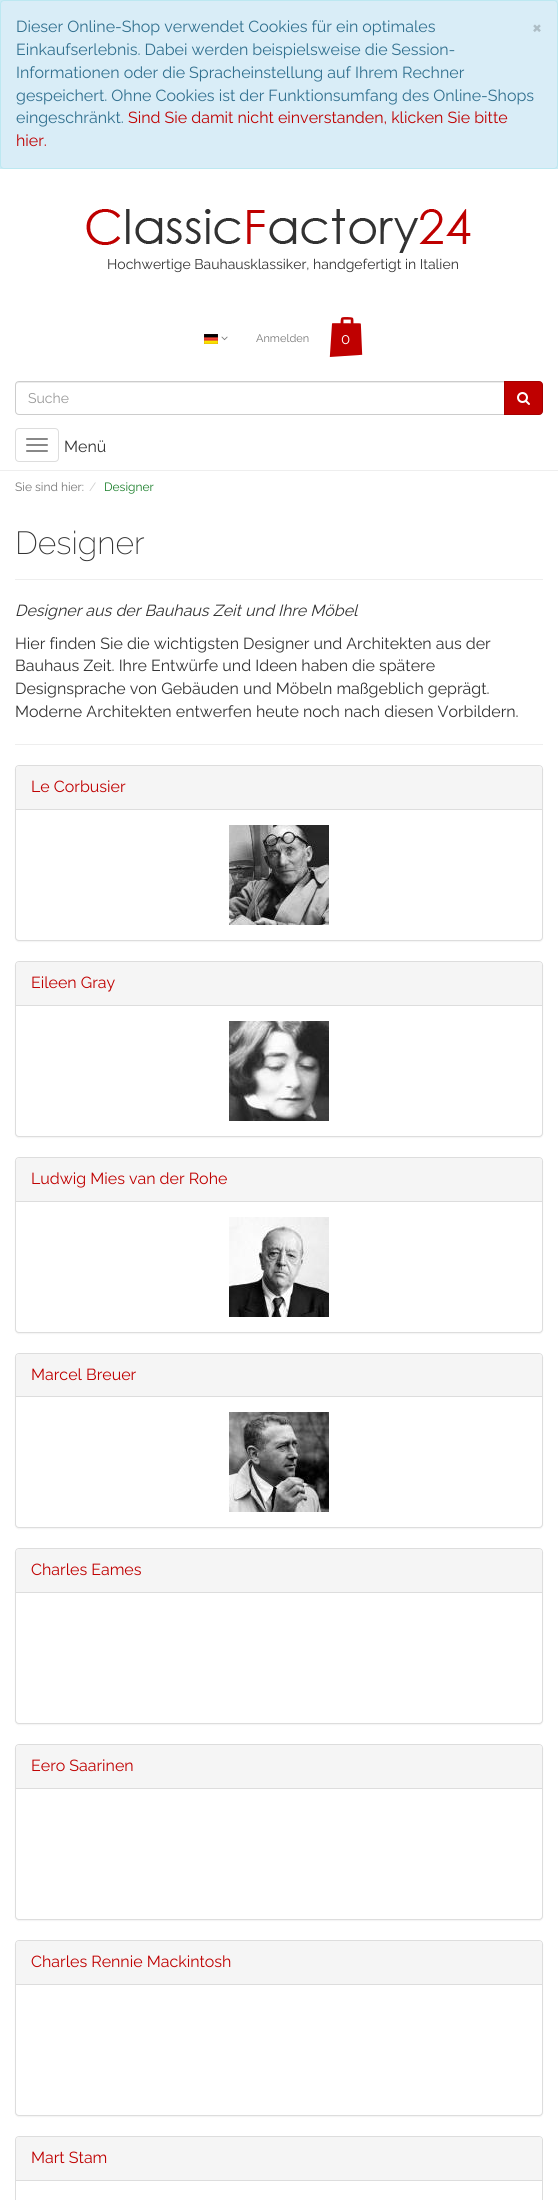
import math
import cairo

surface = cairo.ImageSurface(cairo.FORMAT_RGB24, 558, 2200)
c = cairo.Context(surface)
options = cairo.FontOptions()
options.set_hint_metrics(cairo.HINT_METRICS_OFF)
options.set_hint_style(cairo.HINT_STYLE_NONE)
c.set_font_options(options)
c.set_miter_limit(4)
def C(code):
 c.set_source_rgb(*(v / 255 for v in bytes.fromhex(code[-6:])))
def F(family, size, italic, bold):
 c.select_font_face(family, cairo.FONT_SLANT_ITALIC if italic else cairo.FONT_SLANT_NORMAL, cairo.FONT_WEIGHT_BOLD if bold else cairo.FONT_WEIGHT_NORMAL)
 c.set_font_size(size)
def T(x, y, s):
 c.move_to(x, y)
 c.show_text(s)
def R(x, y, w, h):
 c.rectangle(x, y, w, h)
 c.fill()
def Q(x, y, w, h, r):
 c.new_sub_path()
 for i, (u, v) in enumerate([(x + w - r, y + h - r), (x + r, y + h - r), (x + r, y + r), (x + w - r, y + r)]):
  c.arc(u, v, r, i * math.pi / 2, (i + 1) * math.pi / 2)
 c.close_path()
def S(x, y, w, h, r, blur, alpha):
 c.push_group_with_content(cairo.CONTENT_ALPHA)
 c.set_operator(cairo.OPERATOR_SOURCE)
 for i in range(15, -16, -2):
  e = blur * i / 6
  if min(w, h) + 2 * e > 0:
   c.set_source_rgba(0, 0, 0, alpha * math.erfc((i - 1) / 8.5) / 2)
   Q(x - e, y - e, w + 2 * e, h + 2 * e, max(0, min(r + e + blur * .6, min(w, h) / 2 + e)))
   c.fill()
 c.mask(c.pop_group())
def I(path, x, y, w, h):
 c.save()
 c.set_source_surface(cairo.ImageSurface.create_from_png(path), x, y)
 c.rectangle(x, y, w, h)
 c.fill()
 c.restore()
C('ccebf5')
c.paint()
C('d9edf7')
Q(.5,.5,557,168,3.5)
c.fill_preserve()
C('bce8f1')
c.set_line_width(1)
c.stroke()
F('Raleway',16,0,0)
C('31708f')
T(16,32,'Dieser Online-Shop verwendet Cookies für ein optimales')
F('Raleway',21,0,1)
C('aebec6')
T(532,34,'×')
F('Raleway',16,0,0)
C('31708f')
T(16,55,'Einkaufserlebnis. Dabei werden beispielsweise die Session-')
T(16,78,'Informationen oder die Spracheinstellung auf Ihrem Rechner')
T(16,101,'gespeichert. Ohne Cookies ist der Funktionsumfang des Online-Shops')
T(16,123,'eingeschränkt.')
C('bf0000')
T(128,123,'Sind Sie damit nicht einverstanden, klicken Sie bitte')
T(16,146,'hier.')
C('ffffff')
R(0,169,558,301)
I('1.png',86,209,385,44)
F('Raleway',14,0,0)
C('333333')
T(107,269,'Hochwertige Bauhausklassiker, handgefertigt in Italien')
I('2.png',204,334,14,10)
I('3.png',221,336,7,5)
F('Raleway',11,0,0)
C('777777')
T(256,342,'Anmelden')
I('4.png',329,317,34,40)
F('Raleway',15,0,0)
C('ffffff')
T(341,344,'0')
C('ececec')
c.new_path()
c.move_to(19,383)
c.line_to(504,383)
c.line_to(504,382)
c.line_to(19,382)
c.curve_to(17,382,16,384,16,386)
c.curve_to(16,384,17,383,19,383)
c.close_path()
c.fill()
c.new_path()
c.move_to(19,381.5)
c.line_to(504.5,381.5)
c.line_to(504.5,414.5)
c.line_to(19,414.5)
c.curve_to(17,414.5,15.5,413,15.5,411)
c.line_to(15.5,385)
c.curve_to(15.5,383,17,381.5,19,381.5)
c.close_path()
C('cccccc')
c.stroke()
F('Raleway',14,0,0)
C('999999')
T(28,403,'Suche')
C('bf0000')
c.new_path()
c.move_to(504.5,381.5)
c.line_to(539,381.5)
c.curve_to(541,381.5,542.5,383,542.5,385)
c.line_to(542.5,411)
c.curve_to(542.5,413,541,414.5,539,414.5)
c.line_to(504.5,414.5)
c.close_path()
c.fill_preserve()
C('a60000')
c.stroke()
I('5.png',517,392,13,13)
C('eeeeee')
R(0,470,558,1)
Q(15.5,428.5,43,33,3.5)
C('dddddd')
c.stroke()
C('888888')
Q(26,438,22,2,1)
c.fill()
Q(26,444,22,2,1)
c.fill()
Q(26,450,22,2,1)
c.fill()
F('Raleway',16,0,0)
C('333333')
T(64,452,'Menü')
C('ffffff')
R(0,471,558,1729)
F('Raleway',12,0,0)
C('777777')
T(15,491,'Sie sind hier:')
C('cccccc')
T(89,491,'/')
C('197e29')
T(104,491,'Designer')
C('eeeeee')
R(15,579,528,1)
F('Raleway ExtraLight',32,0,0)
C('333333')
T(15,554,'Designer')
F('Raleway',16,1,0)
T(15,616,'Designer aus der Bauhaus Zeit und Ihre Möbel')
F('Raleway',16,0,0)
T(15,649,'Hier finden Sie die wichtigsten Designer und Architekten aus der')
T(15,671,'Bauhaus Zeit. Ihre Entwürfe und Ideen haben die spätere')
T(15,694,'Designsprache von Gebäuden und Möbeln maßgeblich geprägt.')
T(15,717,'Moderne Architekten entwerfen heute noch nach diesen Vorbildern.')
C('eeeeee')
R(15,744,528,1)
C('000000')
S(15,766,528,176,4,.5,.05)
C('ffffff')
Q(15.5,765.5,527,175,3.5)
c.fill_preserve()
C('dddddd')
c.stroke()
C('f5f5f5')
c.new_path()
c.move_to(19,766)
c.line_to(539,766)
c.curve_to(540.5,766,542,767.5,542,769)
c.line_to(542,810)
c.line_to(16,810)
c.line_to(16,769)
c.curve_to(16,767.5,17.5,766,19,766)
c.close_path()
c.fill()
C('dddddd')
R(16,809,526,1)
C('bf0000')
T(31,792,'Le Corbusier')
I('6.png',229,825,100,100)
C('000000')
S(15,962,528,176,4,.5,.05)
C('ffffff')
Q(15.5,961.5,527,175,3.5)
c.fill_preserve()
C('dddddd')
c.stroke()
C('f5f5f5')
c.new_path()
c.move_to(19,962)
c.line_to(539,962)
c.curve_to(540.5,962,542,963.5,542,965)
c.line_to(542,1006)
c.line_to(16,1006)
c.line_to(16,965)
c.curve_to(16,963.5,17.5,962,19,962)
c.close_path()
c.fill()
C('dddddd')
R(16,1005,526,1)
C('bf0000')
T(31,988,'Eileen Gray')
I('7.png',229,1021,100,100)
C('000000')
S(15,1158,528,176,4,.5,.05)
C('ffffff')
Q(15.5,1157.5,527,175,3.5)
c.fill_preserve()
C('dddddd')
c.stroke()
C('f5f5f5')
c.new_path()
c.move_to(19,1158)
c.line_to(539,1158)
c.curve_to(540.5,1158,542,1159.5,542,1161)
c.line_to(542,1202)
c.line_to(16,1202)
c.line_to(16,1161)
c.curve_to(16,1159.5,17.5,1158,19,1158)
c.close_path()
c.fill()
C('dddddd')
R(16,1201,526,1)
C('bf0000')
T(31,1184,'Ludwig Mies van der Rohe')
I('8.png',229,1217,100,100)
C('000000')
S(15,1354,528,175,4,.5,.05)
C('ffffff')
Q(15.5,1353.5,527,174,3.5)
c.fill_preserve()
C('dddddd')
c.stroke()
C('f5f5f5')
c.new_path()
c.move_to(19,1354)
c.line_to(539,1354)
c.curve_to(540.5,1354,542,1355.5,542,1357)
c.line_to(542,1397)
c.line_to(16,1397)
c.line_to(16,1357)
c.curve_to(16,1355.5,17.5,1354,19,1354)
c.close_path()
c.fill()
C('dddddd')
R(16,1396,526,1)
C('bf0000')
T(31,1380,'Marcel Breuer')
I('9.png',229,1412,100,100)
C('000000')
S(15,1549,528,176,4,.5,.05)
C('ffffff')
Q(15.5,1548.5,527,175,3.5)
c.fill_preserve()
C('dddddd')
c.stroke()
C('f5f5f5')
c.new_path()
c.move_to(19,1549)
c.line_to(539,1549)
c.curve_to(540.5,1549,542,1550.5,542,1552)
c.line_to(542,1593)
c.line_to(16,1593)
c.line_to(16,1552)
c.curve_to(16,1550.5,17.5,1549,19,1549)
c.close_path()
c.fill()
C('dddddd')
R(16,1592,526,1)
C('bf0000')
T(31,1575,'Charles Eames')
C('000000')
S(15,1745,528,176,4,.5,.05)
C('ffffff')
Q(15.5,1744.5,527,175,3.5)
c.fill_preserve()
C('dddddd')
c.stroke()
C('f5f5f5')
c.new_path()
c.move_to(19,1745)
c.line_to(539,1745)
c.curve_to(540.5,1745,542,1746.5,542,1748)
c.line_to(542,1789)
c.line_to(16,1789)
c.line_to(16,1748)
c.curve_to(16,1746.5,17.5,1745,19,1745)
c.close_path()
c.fill()
C('dddddd')
R(16,1788,526,1)
C('bf0000')
T(31,1771,'Eero Saarinen')
C('000000')
S(15,1941,528,176,4,.5,.05)
C('ffffff')
Q(15.5,1940.5,527,175,3.5)
c.fill_preserve()
C('dddddd')
c.stroke()
C('f5f5f5')
c.new_path()
c.move_to(19,1941)
c.line_to(539,1941)
c.curve_to(540.5,1941,542,1942.5,542,1944)
c.line_to(542,1985)
c.line_to(16,1985)
c.line_to(16,1944)
c.curve_to(16,1942.5,17.5,1941,19,1941)
c.close_path()
c.fill()
C('dddddd')
R(16,1984,526,1)
C('bf0000')
T(31,1967,'Charles Rennie Mackintosh')
Q(15.5,2136.5,527,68,3.5)
C('dddddd')
c.stroke()
C('f5f5f5')
c.new_path()
c.move_to(19,2137)
c.line_to(539,2137)
c.curve_to(540.5,2137,542,2138.5,542,2140)
c.line_to(542,2181)
c.line_to(16,2181)
c.line_to(16,2140)
c.curve_to(16,2138.5,17.5,2137,19,2137)
c.close_path()
c.fill()
C('dddddd')
R(16,2180,526,1)
C('bf0000')
T(31,2163,'Mart Stam')
surface.write_to_png('o.png')
